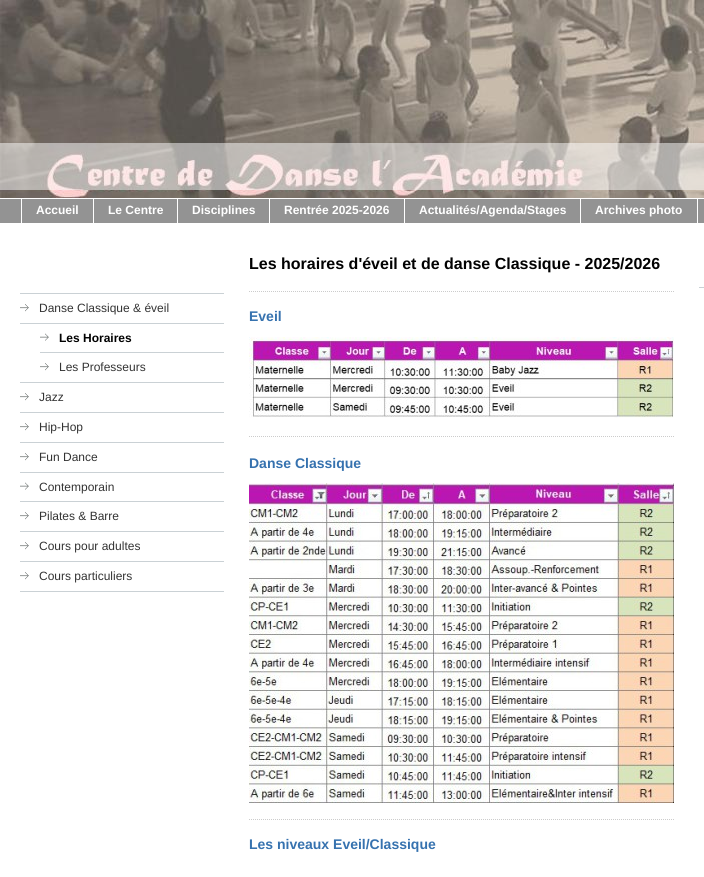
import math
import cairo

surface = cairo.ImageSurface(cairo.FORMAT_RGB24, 704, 877)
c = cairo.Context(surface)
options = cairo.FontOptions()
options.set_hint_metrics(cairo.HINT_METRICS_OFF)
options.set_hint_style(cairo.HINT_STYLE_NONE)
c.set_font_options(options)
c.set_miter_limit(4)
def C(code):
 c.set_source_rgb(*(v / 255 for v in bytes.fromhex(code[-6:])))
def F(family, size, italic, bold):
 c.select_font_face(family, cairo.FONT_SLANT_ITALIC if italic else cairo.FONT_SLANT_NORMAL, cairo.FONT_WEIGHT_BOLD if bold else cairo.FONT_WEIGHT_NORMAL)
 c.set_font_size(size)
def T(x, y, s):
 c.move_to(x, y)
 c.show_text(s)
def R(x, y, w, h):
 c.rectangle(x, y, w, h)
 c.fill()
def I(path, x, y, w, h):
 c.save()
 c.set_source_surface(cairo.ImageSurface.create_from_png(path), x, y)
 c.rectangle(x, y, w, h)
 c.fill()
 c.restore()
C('ffffff')
c.paint()
I('1.png',0,0,704,198)
c.set_source_rgba(1,1,1,0.5)
R(0,143,704,47)
C('939393')
R(0,199,21,24)
R(22,199,71,24)
F('Liberation Sans',12,0,1)
C('ffffff')
T(36,214,'Accueil')
C('939393')
R(94,199,83,24)
C('ffffff')
T(108,214,'Le Centre')
C('939393')
R(178,199,91,24)
C('ffffff')
T(192,214,'Disciplines')
C('939393')
R(270,199,134,24)
C('ffffff')
T(284,214,'Rentrée 2025-2026')
C('939393')
R(405,199,175,24)
C('ffffff')
T(419,214,'Actualités/Agenda/Stages')
C('939393')
R(581,199,116,24)
C('ffffff')
T(595,214,'Archives photo')
C('939393')
R(698,198,6,26)
C('ffffff')
R(698,198,6,1)
R(698,223,6,1)
F('Liberation Sans',16,0,1)
C('010101')
T(249,269,'Les horaires d\'éveil et de danse Classique - 2025/2026')
c.new_path()
c.move_to(249,291.5)
c.line_to(674,291.5)
C('cccccc')
c.set_line_width(1)
c.set_dash([1,1])
c.stroke()
F('Liberation Sans',14,0,1)
C('3672af')
T(249,321,'Eveil')
I('2.png',249,337,425,81)
c.new_path()
c.move_to(249,436.5)
c.line_to(674,436.5)
C('cccccc')
c.stroke()
C('3672af')
T(249,468,'Danse Classique')
I('3.png',249,483,425,320)
c.new_path()
c.move_to(249,819.5)
c.line_to(674,819.5)
C('cccccc')
c.stroke()
C('3672af')
T(249,849,'Les niveaux Eveil/Classique')
C('cad1d5')
R(699,287,5,1)
R(20,293,204,1)
I('4.png',20,304,9,8)
R(20,323,204,1)
F('Liberation Sans',12,0,0)
C('333333')
T(39,312,'Danse Classique & éveil')
I('5.png',40,333,9,8)
C('cad1d5')
R(40,352,184,1)
F('Liberation Sans',12,0,1)
C('010101')
T(59,342,'Les Horaires')
I('4.png',40,363,9,8)
F('Liberation Sans',12,0,0)
C('333333')
T(59,371,'Les Professeurs')
I('4.png',20,393,9,8)
C('cad1d5')
R(20,382,204,1)
R(20,412,204,1)
C('333333')
T(39,401,'Jazz')
I('4.png',20,423,9,8)
C('cad1d5')
R(20,442,204,1)
C('333333')
T(39,431,'Hip-Hop')
I('4.png',20,453,9,8)
C('cad1d5')
R(20,472,204,1)
C('333333')
T(39,461,'Fun Dance')
I('5.png',20,482,9,8)
C('cad1d5')
R(20,501,204,1)
C('333333')
T(39,491,'Contemporain')
I('4.png',20,512,9,8)
C('cad1d5')
R(20,531,204,1)
C('333333')
T(39,520,'Pilates & Barre')
I('4.png',20,542,9,8)
C('cad1d5')
R(20,561,204,1)
C('333333')
T(39,550,'Cours pour adultes')
I('4.png',20,572,9,8)
C('cad1d5')
R(20,591,204,1)
C('333333')
T(39,580,'Cours particuliers')
surface.write_to_png('o.png')
